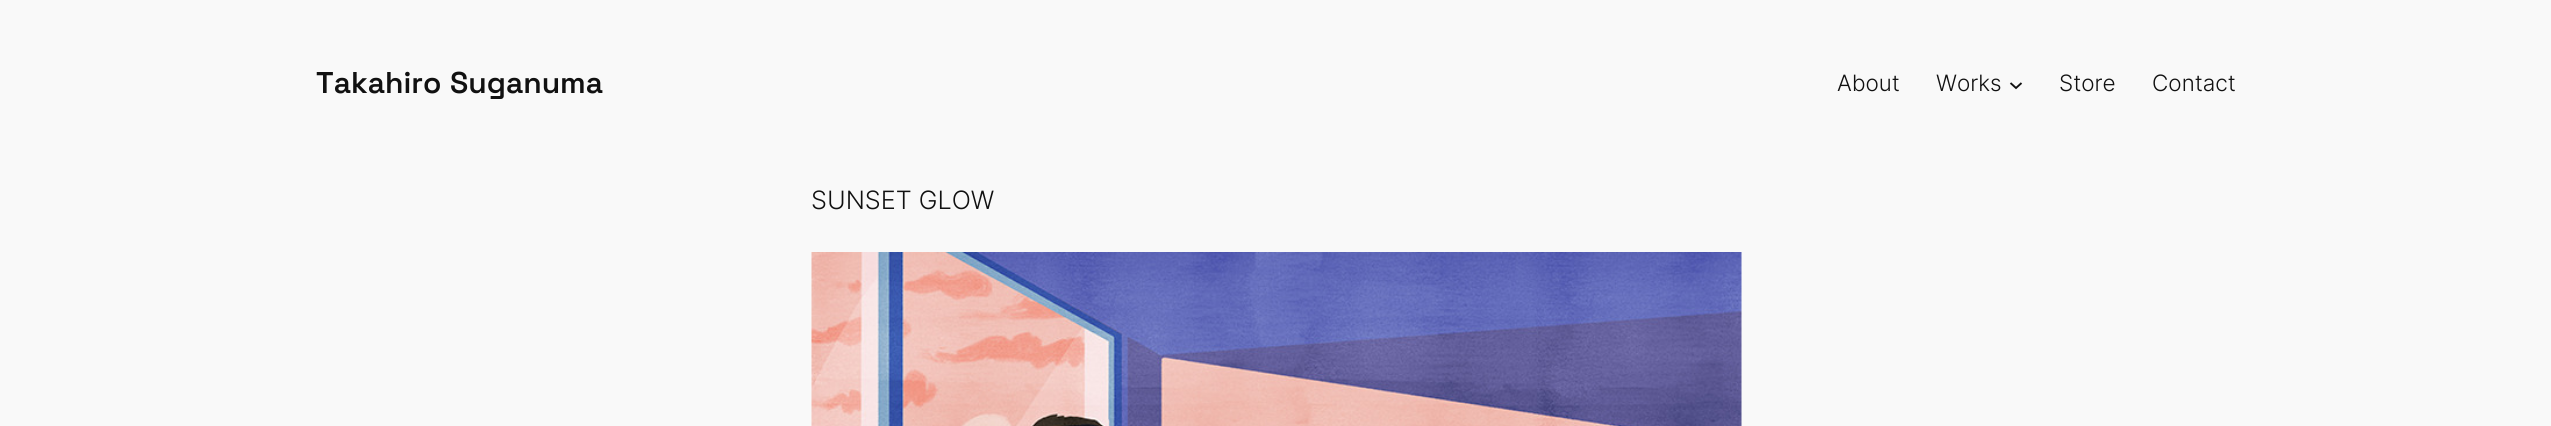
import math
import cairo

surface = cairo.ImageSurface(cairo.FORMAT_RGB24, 2551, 426)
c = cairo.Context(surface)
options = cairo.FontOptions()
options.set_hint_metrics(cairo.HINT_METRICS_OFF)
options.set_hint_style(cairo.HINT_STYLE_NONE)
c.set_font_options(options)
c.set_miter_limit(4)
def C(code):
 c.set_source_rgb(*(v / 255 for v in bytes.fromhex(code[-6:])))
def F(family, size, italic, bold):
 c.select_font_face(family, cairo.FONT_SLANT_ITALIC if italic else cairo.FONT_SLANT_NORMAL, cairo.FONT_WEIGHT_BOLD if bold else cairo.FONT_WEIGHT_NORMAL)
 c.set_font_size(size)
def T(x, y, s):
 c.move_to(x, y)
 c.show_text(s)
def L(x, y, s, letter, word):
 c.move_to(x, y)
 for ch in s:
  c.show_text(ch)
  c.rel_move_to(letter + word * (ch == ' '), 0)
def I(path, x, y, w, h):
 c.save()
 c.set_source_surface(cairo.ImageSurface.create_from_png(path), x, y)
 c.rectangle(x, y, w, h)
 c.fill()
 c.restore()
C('f9f9f9')
c.paint()
F('Space Grotesk SemiBold',30,0,0)
C('111111')
L(316,93,'Takahiro Suganuma',0,1)
F('Inter Light',22.5,0,0)
T(1837,91,'About')
T(1936,91,'Works')
c.new_path()
c.move_to(2010.5,83)
c.line_to(2016,88)
c.line_to(2021.5,83)
c.set_line_width(1.9)
c.stroke()
T(2059,91,'Store')
T(2152,91,'Contact')
F('Inter Light',25.25,0,0)
T(811,209,'SUNSET GLOW')
I('1.png',811,252,931,174)
surface.write_to_png('o.png')
